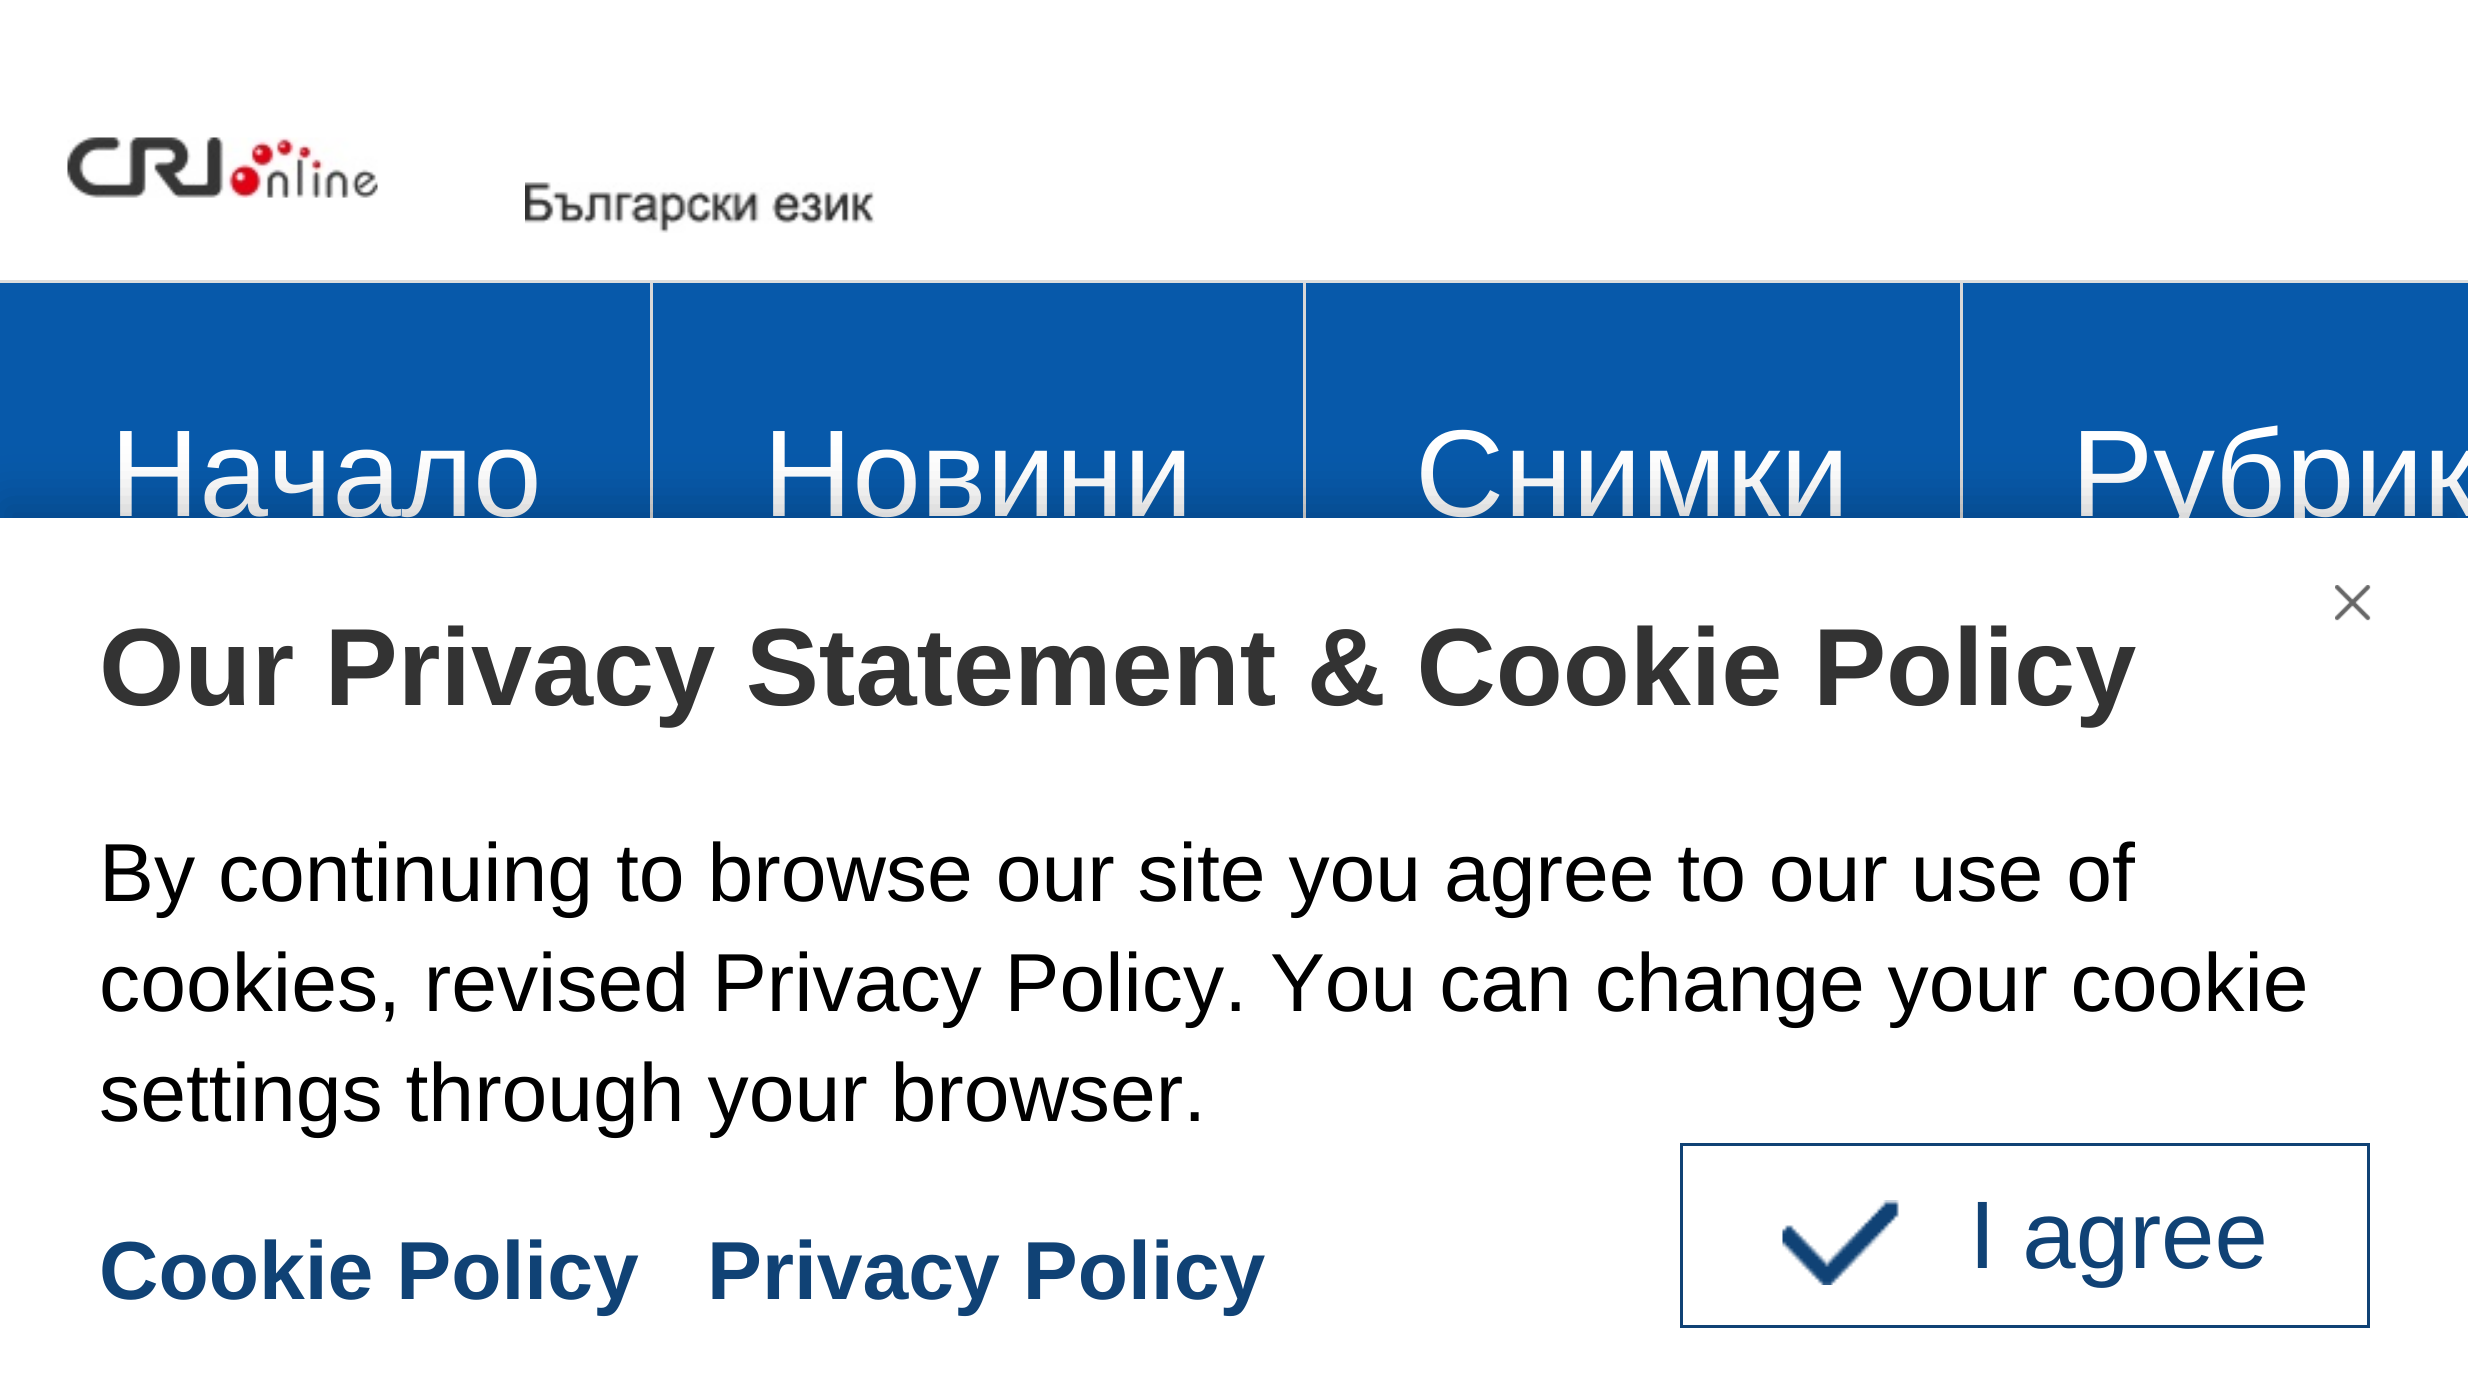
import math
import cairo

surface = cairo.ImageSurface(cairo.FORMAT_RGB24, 2468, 1394)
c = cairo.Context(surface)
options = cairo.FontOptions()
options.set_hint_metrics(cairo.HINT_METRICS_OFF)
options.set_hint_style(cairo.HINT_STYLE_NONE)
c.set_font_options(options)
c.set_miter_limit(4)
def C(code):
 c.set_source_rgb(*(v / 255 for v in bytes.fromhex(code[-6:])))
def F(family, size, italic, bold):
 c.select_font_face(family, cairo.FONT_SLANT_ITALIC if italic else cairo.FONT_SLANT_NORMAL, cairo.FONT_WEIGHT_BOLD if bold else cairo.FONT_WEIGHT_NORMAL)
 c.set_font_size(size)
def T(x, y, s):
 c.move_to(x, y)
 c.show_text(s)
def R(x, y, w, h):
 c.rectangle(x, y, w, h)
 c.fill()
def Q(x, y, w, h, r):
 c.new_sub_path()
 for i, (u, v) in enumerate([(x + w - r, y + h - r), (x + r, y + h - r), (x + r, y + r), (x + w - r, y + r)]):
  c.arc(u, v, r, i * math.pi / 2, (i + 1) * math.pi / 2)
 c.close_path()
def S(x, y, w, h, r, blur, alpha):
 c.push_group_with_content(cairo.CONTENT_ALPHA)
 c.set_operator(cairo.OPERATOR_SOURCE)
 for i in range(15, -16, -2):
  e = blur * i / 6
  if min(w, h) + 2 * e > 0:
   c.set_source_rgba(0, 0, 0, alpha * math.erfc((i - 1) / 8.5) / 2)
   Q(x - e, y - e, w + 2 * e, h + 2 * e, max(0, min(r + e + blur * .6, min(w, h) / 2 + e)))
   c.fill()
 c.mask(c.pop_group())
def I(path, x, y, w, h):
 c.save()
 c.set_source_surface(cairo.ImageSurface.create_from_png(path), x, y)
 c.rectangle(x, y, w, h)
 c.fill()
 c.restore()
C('ffffff')
c.paint()
I('1.png',67,137,311,61)
I('2.png',525,182,350,51)
C('0759aa')
R(0,283,2468,235)
C('dcdddd')
R(0,280,2468,3)
F('Liberation Sans',123.5,0,0)
C('ffffff')
T(110,516,'Начало')
C('d8d8d8')
R(650,283,3,235)
C('ffffff')
T(763,516,'Новини')
C('d8d8d8')
R(1303,283,3,235)
C('ffffff')
T(1415,516,'Снимки')
C('d8d8d8')
R(1960,283,3,235)
C('ffffff')
T(2071,516,'Рубрик')
C('000000')
S(0,500,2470,878,0,25,.19)
C('ffffff')
R(0,518,2468,876)
I('3.png',2335,585,36,36)
F('Liberation Sans',109.75,0,1)
C('333333')
T(99,705,'Our Privacy Statement & Cookie Policy')
F('Liberation Sans',82.3,0,0)
C('000000')
T(99,901,'By continuing to browse our site you agree to our use of')
T(99,1011,'cookies, revised Privacy Policy. You can change your cookie')
T(99,1121,'settings through your browser.')
F('Liberation Sans',82.3,0,1)
C('104275')
T(99,1299,'Cookie Policy')
T(707,1299,'Privacy Policy')
c.rectangle(1681.5,1144.5,687,182)
c.set_line_width(3)
c.stroke()
I('4.png',1782,1200,117,85)
F('Liberation Sans',96,0,0)
T(1969,1268,'I agree')
surface.write_to_png('o.png')
